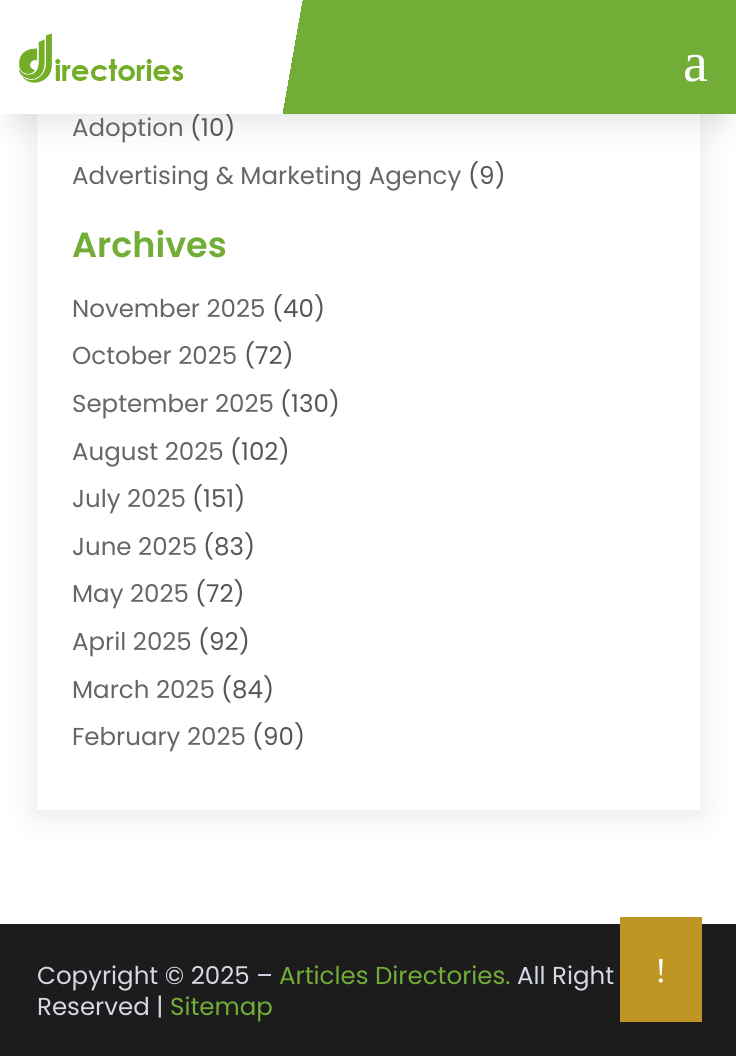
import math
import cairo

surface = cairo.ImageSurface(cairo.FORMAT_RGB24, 736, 1056)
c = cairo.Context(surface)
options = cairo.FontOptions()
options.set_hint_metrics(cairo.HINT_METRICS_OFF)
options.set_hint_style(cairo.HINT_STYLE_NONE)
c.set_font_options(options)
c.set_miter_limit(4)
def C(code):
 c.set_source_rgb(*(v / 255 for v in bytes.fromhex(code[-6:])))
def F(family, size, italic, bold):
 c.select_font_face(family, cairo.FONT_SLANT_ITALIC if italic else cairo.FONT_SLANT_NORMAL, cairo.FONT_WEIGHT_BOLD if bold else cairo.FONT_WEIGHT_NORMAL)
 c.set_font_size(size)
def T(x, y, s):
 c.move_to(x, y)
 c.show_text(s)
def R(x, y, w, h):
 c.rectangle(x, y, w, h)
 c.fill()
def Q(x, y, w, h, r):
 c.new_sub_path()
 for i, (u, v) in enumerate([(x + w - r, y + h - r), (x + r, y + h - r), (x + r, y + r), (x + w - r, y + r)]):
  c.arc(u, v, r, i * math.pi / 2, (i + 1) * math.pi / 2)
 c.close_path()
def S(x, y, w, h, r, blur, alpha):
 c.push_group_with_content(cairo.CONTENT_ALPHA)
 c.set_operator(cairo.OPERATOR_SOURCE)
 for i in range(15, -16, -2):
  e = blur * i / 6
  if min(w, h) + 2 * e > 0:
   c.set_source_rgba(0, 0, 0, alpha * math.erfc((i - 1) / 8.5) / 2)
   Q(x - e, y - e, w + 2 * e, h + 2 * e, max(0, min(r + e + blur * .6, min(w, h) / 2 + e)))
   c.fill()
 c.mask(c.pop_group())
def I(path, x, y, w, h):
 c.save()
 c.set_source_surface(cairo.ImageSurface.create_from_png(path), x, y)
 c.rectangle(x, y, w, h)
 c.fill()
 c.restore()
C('ffffff')
c.paint()
C('000000')
S(11,32,715,92,0,16,.1)
c.save()
c.set_fill_rule(cairo.FILL_RULE_EVEN_ODD)
c.new_path()
c.move_to(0,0)
c.line_to(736,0)
c.line_to(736,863)
c.line_to(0,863)
c.close_path()
c.move_to(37,-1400)
c.line_to(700,-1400)
c.line_to(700,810)
c.line_to(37,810)
c.close_path()
c.clip()
S(37,-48,663,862,0,16,.1)
c.restore()
F('Poppins',24.5,0,0)
C('565656')
T(190,136,'(10)')
gradient = cairo.LinearGradient(1.4,-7.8,735,122)
gradient.add_color_stop_rgba(.4,1,1,1,1)
gradient.add_color_stop_rgba(.4,0.447,0.678,0.216,1)
c.set_source(gradient)
R(0,0,736,114)
I('1.png',19,33,165,50)
F('Liberation Serif',56,0,0)
C('ffffff')
T(683,81,'a')
F('Poppins',24.5,0,0)
C('666666')
T(72,136,'Adoption')
T(72,184,'Advertising & Marketing Agency')
C('565656')
T(468,184,'(9)')
F('Poppins SemiBold',35,0,0)
C('72ad37')
T(72,257,'Archives')
F('Poppins',24.5,0,0)
C('666666')
T(72,317,'November 2025')
C('565656')
T(272,317,'(40)')
C('666666')
T(72,364,'October 2025')
C('565656')
T(244,364,'(72)')
C('666666')
T(72,412,'September 2025')
C('565656')
T(280,412,'(130)')
C('666666')
T(72,460,'August 2025')
C('565656')
T(230,460,'(102)')
C('666666')
T(72,507,'July 2025')
C('565656')
T(192,507,'(151)')
C('666666')
T(72,555,'June 2025')
C('565656')
T(203,555,'(83)')
C('666666')
T(72,602,'May 2025')
C('565656')
T(195,602,'(72)')
C('666666')
T(72,650,'April 2025')
C('565656')
T(198,650,'(92)')
C('666666')
T(72,698,'March 2025')
C('565656')
T(221,698,'(84)')
C('666666')
T(72,745,'February 2025')
C('565656')
T(252,745,'(90)')
C('1c1c1c')
R(0,924,736,132)
C('d5d8e5')
T(37,984,'Copyright © 2025 –')
C('72ad37')
T(279,984,'Articles Directories.')
C('d5d8e5')
T(517,984,'All Right')
T(37,1015,'Reserved |')
C('72ad37')
T(170,1015,'Sitemap')
C('bf9524')
R(620,917,82,105)
F('Liberation Serif',35,0,0)
C('ffffff')
T(655,982,'!')
surface.write_to_png('o.png')
